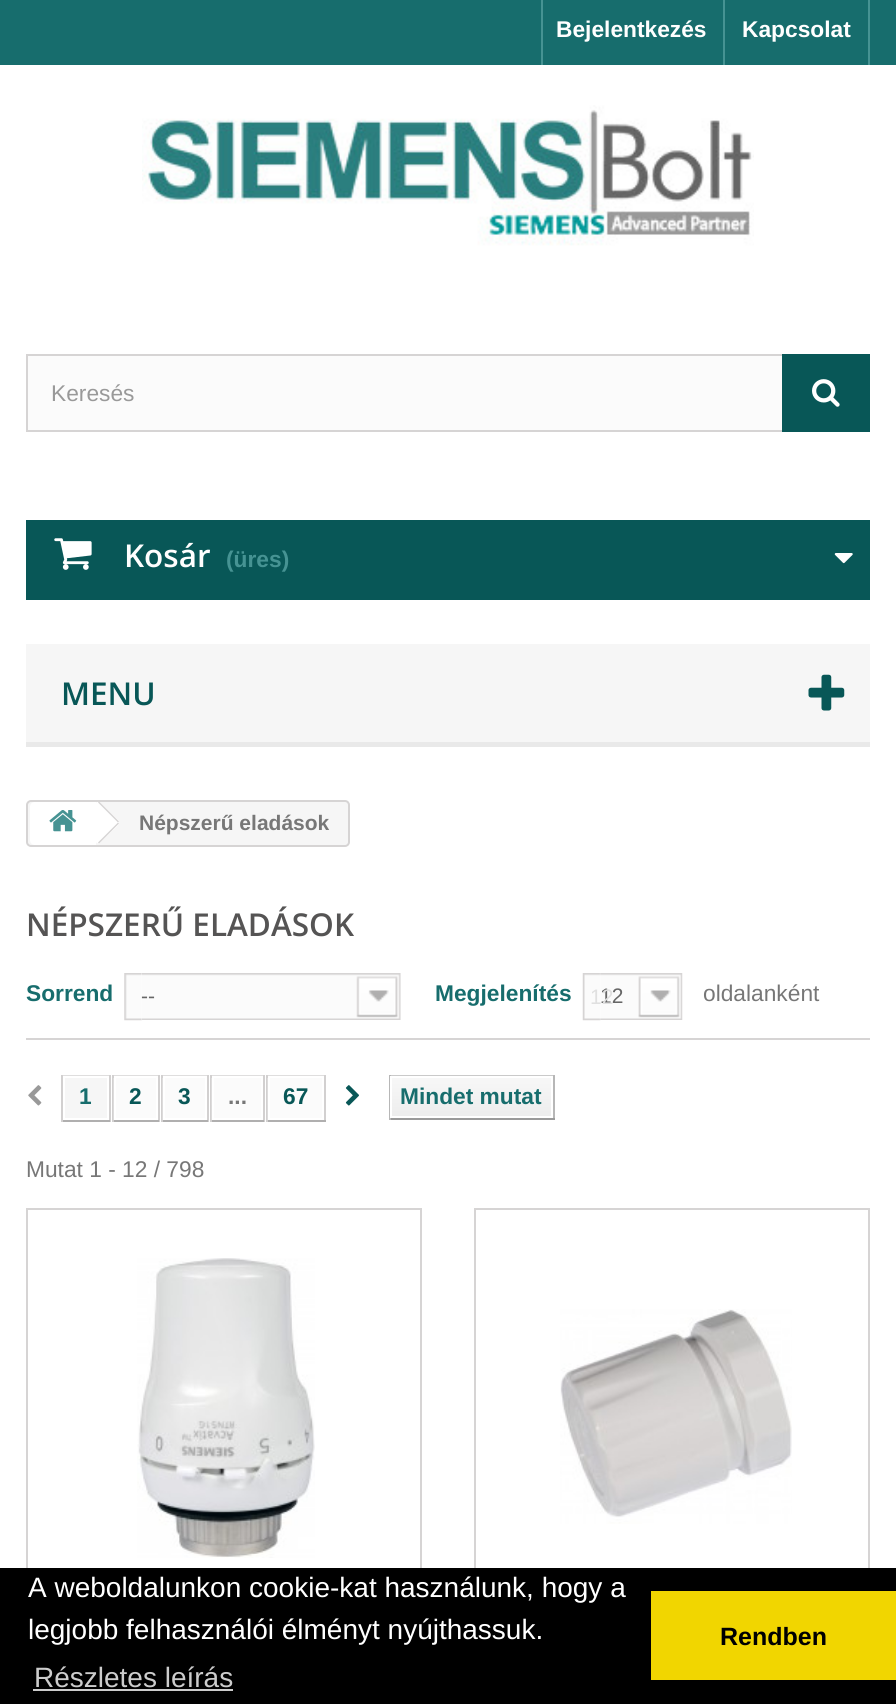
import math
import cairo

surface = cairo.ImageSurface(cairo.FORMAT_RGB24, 896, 1704)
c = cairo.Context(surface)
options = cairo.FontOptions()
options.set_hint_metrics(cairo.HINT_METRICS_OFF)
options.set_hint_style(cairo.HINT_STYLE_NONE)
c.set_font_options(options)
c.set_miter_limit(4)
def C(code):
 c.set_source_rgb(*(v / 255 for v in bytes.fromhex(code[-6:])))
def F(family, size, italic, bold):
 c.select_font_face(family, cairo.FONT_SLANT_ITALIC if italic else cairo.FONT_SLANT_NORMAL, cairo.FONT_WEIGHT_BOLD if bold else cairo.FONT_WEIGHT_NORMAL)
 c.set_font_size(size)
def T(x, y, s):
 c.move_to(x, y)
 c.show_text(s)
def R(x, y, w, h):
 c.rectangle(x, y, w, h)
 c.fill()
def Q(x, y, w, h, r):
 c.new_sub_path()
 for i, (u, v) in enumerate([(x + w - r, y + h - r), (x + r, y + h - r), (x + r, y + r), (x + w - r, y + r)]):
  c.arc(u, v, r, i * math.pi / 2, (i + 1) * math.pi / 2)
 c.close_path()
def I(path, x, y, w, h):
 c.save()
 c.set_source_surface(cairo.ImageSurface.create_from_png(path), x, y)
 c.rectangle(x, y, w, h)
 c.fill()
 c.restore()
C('ffffff')
c.paint()
C('176d6d')
R(0,0,896,65)
C('469393')
R(723,0,2,65)
R(541,0,2,65)
F('Liberation Sans',22.75,0,1)
C('ffffff')
T(556,37,'Bejelentkezés')
C('469393')
R(868,0,2,65)
C('ffffff')
T(742,37,'Kapcsolat')
I('1.png',142,105,612,141)
C('fbfbfb')
R(28,356,754,74)
c.rectangle(27,355,842,76)
C('d6d4d4')
c.stroke()
F('Liberation Sans',22.75,0,0)
C('999999')
T(51,401,'Keresés')
C('085757')
R(782,354,88,78)
I('2.png',812,379,28,28)
R(26,520,844,80)
I('3.png',54,538,38,32)
F('Open Sans SemiBold',31.5,0,0)
C('ffffff')
T(124,567,'Kosár')
F('Liberation Sans',22.75,0,1)
C('469393')
T(226,567,'(üres)')
I('4.png',834,553,19,11)
C('f6f6f6')
R(26,644,844,98)
C('e9e9e9')
R(26,742,844,5)
F('Open Sans SemiBold',31.5,0,0)
C('085757')
T(61,705,'MENU')
I('5.png',808,674,37,37)
C('f6f6f6')
Q(27,801,322,45,4)
c.fill_preserve()
C('d6d4d4')
c.stroke()
C('ffffff')
c.new_path()
c.move_to(35,802)
c.line_to(96,802)
c.line_to(96,845)
c.line_to(35,845)
c.curve_to(32,845,30,843,30,840)
c.line_to(30,807)
c.curve_to(30,804,32,802,35,802)
c.close_path()
c.fill()
I('6.png',49,810,28,22)
c.new_path()
c.move_to(100,803)
c.line_to(99,802)
c.line_to(97,802)
c.line_to(81,817)
c.curve_to(76,822,76,823,81,828)
c.line_to(93,839)
c.curve_to(96,842,97,845,100,842)
c.line_to(112,831)
c.curve_to(114,829,122,824,118,820)
c.close_path()
c.fill()
C('d6d4d4')
c.new_path()
c.move_to(99,801.5)
c.line_to(119,821.5)
c.line_to(118,822.5)
c.line_to(98,802.5)
c.close_path()
c.fill()
c.new_path()
c.move_to(118,822.5)
c.line_to(119,823.5)
c.line_to(99,843.5)
c.line_to(98,842.5)
c.close_path()
c.fill()
F('Liberation Sans',21,0,1)
C('777777')
T(139,830,'Népszerű eladások')
F('Open Sans SemiBold',31.5,0,0)
C('555454')
T(26,936,'NÉPSZERŰ ELADÁSOK')
C('d6d4d4')
R(26,1038,844,2)
F('Liberation Sans',22.75,0,1)
C('176d6d')
T(26,1001,'Sorrend')
I('7.png',124,973,19,48)
I('8.png',142,973,259,47)
F('Liberation Sans',21,0,0)
C('666666')
T(141,1003,'--')
F('Liberation Sans',22.75,0,1)
C('176d6d')
T(435,1001,'Megjelenítés')
I('9.png',582,973,19,48)
I('10.png',600,973,83,47)
F('Liberation Sans',21,0,0)
C('666666')
T(600,1003,'12')
C('e0e0e0')
T(590,1004,'12')
F('Liberation Sans',22.75,0,0)
C('777777')
T(703,1001,'oldalanként')
I('11.png',28,1085,14,21)
C('dfdede')
R(61,1075,49,1)
C('d2d0d0')
R(109,1075,2,47)
C('b0afaf')
R(61,1120,49,2)
C('d2d0d0')
R(61,1075,2,47)
C('f6f6f6')
R(65,1078,42,40)
F('Liberation Sans',22.75,0,1)
C('176d6d')
T(79,1104,'1')
C('dfdede')
R(112,1075,47,1)
C('d2d0d0')
R(158,1075,2,47)
C('b0afaf')
R(112,1120,47,2)
C('d2d0d0')
R(112,1075,2,47)
C('fbfbfb')
R(116,1078,40,40)
I('12.png',113,1078,1,42)
C('085757')
T(129,1104,'2')
C('dfdede')
R(161,1075,47,1)
C('d2d0d0')
R(207,1075,2,47)
C('b0afaf')
R(161,1120,47,2)
C('d2d0d0')
R(161,1075,2,47)
C('fbfbfb')
R(165,1078,40,40)
I('12.png',162,1078,1,42)
C('085757')
T(178,1104,'3')
C('dfdede')
R(210,1075,54,1)
C('d2d0d0')
R(263,1075,2,47)
C('b0afaf')
R(210,1120,54,2)
C('d2d0d0')
R(210,1075,2,47)
C('fbfbfb')
R(214,1078,47,40)
I('12.png',211,1078,1,42)
C('777777')
T(228,1104,'...')
C('dfdede')
R(266,1075,60,1)
C('d2d0d0')
R(324,1075,2,47)
C('b0afaf')
R(266,1120,60,2)
C('d2d0d0')
R(266,1075,2,47)
C('fbfbfb')
R(270,1078,52,40)
I('12.png',267,1078,1,42)
C('085757')
T(283,1104,'67')
I('13.png',345,1085,14,21)
C('cacaca')
R(389,1075,166,1)
C('b7b7b7')
R(553,1075,2,45)
C('9a9a9a')
R(389,1118,166,2)
C('b7b7b7')
R(389,1075,2,45)
gradient = cairo.LinearGradient(472,1078,472,1117)
gradient.add_color_stop_rgba(0,0.969,0.969,0.969,1)
gradient.add_color_stop_rgba(1,0.929,0.929,0.929,1)
c.set_source(gradient)
R(392,1078,159,38)
c.rectangle(391,1077,161,40)
C('ffffff')
c.stroke()
C('176d6d')
T(400,1104,'Mindet mutat')
F('Liberation Sans',22.75,0,0)
C('777777')
T(26,1177,'Mutat 1 - 12 / 798')
c.rectangle(27,1209,394,393)
C('d6d4d4')
c.stroke()
I('14.png',137,1258,178,300)
c.rectangle(475,1209,394,393)
c.stroke()
I('15.png',560,1309,232,215)
C('000000')
R(0,1568,896,136)
F('Liberation Sans',28,0,0)
C('ffffff')
T(28,1597,'A weboldalunkon cookie-kat használunk, hogy a')
T(28,1639,'legjobb felhasználói élményt nyújthassuk.')
C('cccccc')
T(34,1687,'Részletes leírás')
R(33,1689,200,2)
C('f1d600')
R(651,1591,245,89)
F('Liberation Sans',25,0,1)
C('000000')
T(720,1645,'Rendben')
surface.write_to_png('o.png')
